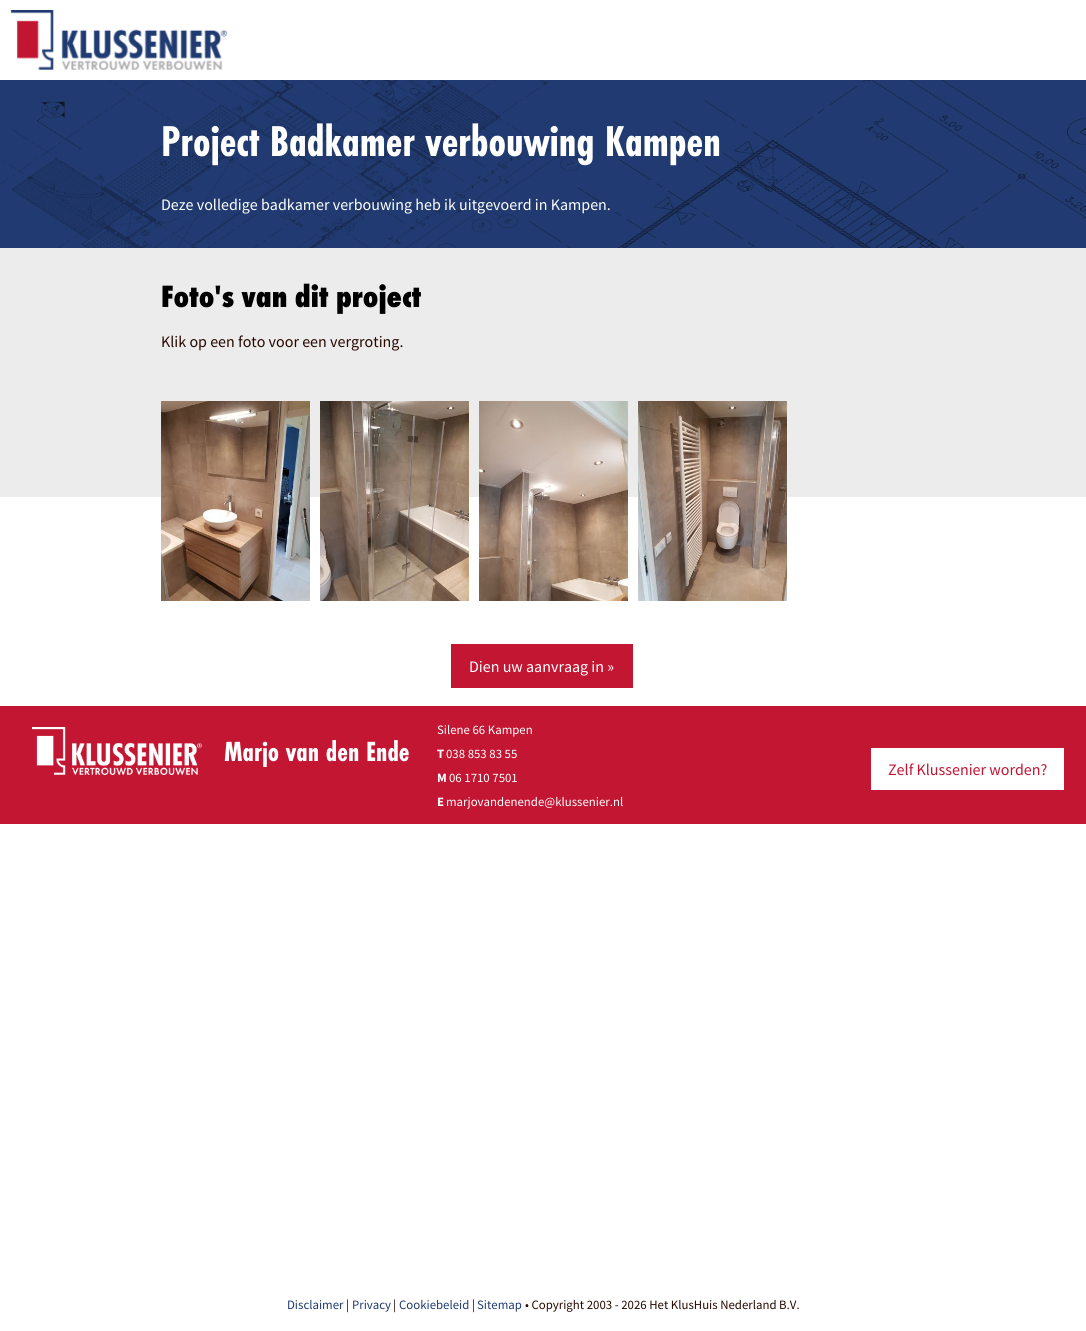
import math
import cairo

surface = cairo.ImageSurface(cairo.FORMAT_RGB24, 1086, 1331)
c = cairo.Context(surface)
options = cairo.FontOptions()
options.set_hint_metrics(cairo.HINT_METRICS_OFF)
options.set_hint_style(cairo.HINT_STYLE_NONE)
c.set_font_options(options)
c.set_miter_limit(4)
def C(code):
 c.set_source_rgb(*(v / 255 for v in bytes.fromhex(code[-6:])))
def F(family, size, italic, bold):
 c.select_font_face(family, cairo.FONT_SLANT_ITALIC if italic else cairo.FONT_SLANT_NORMAL, cairo.FONT_WEIGHT_BOLD if bold else cairo.FONT_WEIGHT_NORMAL)
 c.set_font_size(size)
def T(x, y, s):
 c.move_to(x, y)
 c.show_text(s)
def R(x, y, w, h):
 c.rectangle(x, y, w, h)
 c.fill()
def I(path, x, y, w, h):
 c.save()
 c.set_source_surface(cairo.ImageSurface.create_from_png(path), x, y)
 c.rectangle(x, y, w, h)
 c.fill()
 c.restore()
C('ffffff')
c.paint()
I('1.png',10,10,217,60)
I('2.png',0,80,1086,168)
F('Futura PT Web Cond',44.75,0,1)
C('ffffff')
T(161,156,'Project Badkamer verbouwing Kampen')
F('Source Sans Pro',16,0,0)
T(161,210,'Deze volledige badkamer verbouwing heb ik uitgevoerd in Kampen.')
C('edeced')
R(0,248,1086,249)
F('Futura PT Web Cond ExtraBold',32,0,0)
C('000000')
T(161,307,'Foto\'s van dit project')
F('Source Sans Pro',16,0,0)
C('270900')
T(161,347,'Klik op een foto voor een vergroting.')
I('3.png',161,401,149,200)
I('4.png',320,401,149,200)
I('5.png',479,401,149,200)
I('6.png',638,401,149,200)
C('c21632')
R(451,644,182,44)
C('ffffff')
T(469,672,'Dien uw aanvraag in »')
C('c21632')
R(0,706,1086,118)
I('7.png',32,727,170,48)
F('Futura PT Web Cond',28.75,0,1)
C('ffffff')
T(224,761,'Marjo van den Ende')
F('Source Sans Pro',12.8,0,0)
T(437,734,'Silene 66 Kampen')
F('Source Sans Pro',12.8,0,1)
T(437,758,'T')
F('Source Sans Pro',12.8,0,0)
T(446,758,'038 853 83 55')
F('Source Sans Pro',12.8,0,1)
T(437,782,'M')
F('Source Sans Pro',12.8,0,0)
T(449,782,'06 1710 7501')
F('Source Sans Pro',12.8,0,1)
T(437,806,'E')
F('Source Sans Pro',12.8,0,0)
T(446,806,'marjovandenende@klussenier.nl')
R(871,748,193,42)
F('Source Sans Pro',16,0,0)
C('c21632')
T(888,775,'Zelf Klussenier worden?')
F('Source Sans Pro',12.8,0,0)
C('1f3b71')
T(287,1309,'Disclaimer')
C('270900')
T(346,1309,'|')
C('1f3b71')
T(352,1309,'Privacy')
C('270900')
T(393,1309,'|')
C('1f3b71')
T(399,1309,'Cookiebeleid')
C('270900')
T(472,1309,'|')
C('1f3b71')
T(477,1309,'Sitemap')
C('270900')
T(525,1309,'• Copyright 2003 - 2026 Het KlusHuis Nederland B.V.')
surface.write_to_png('o.png')
